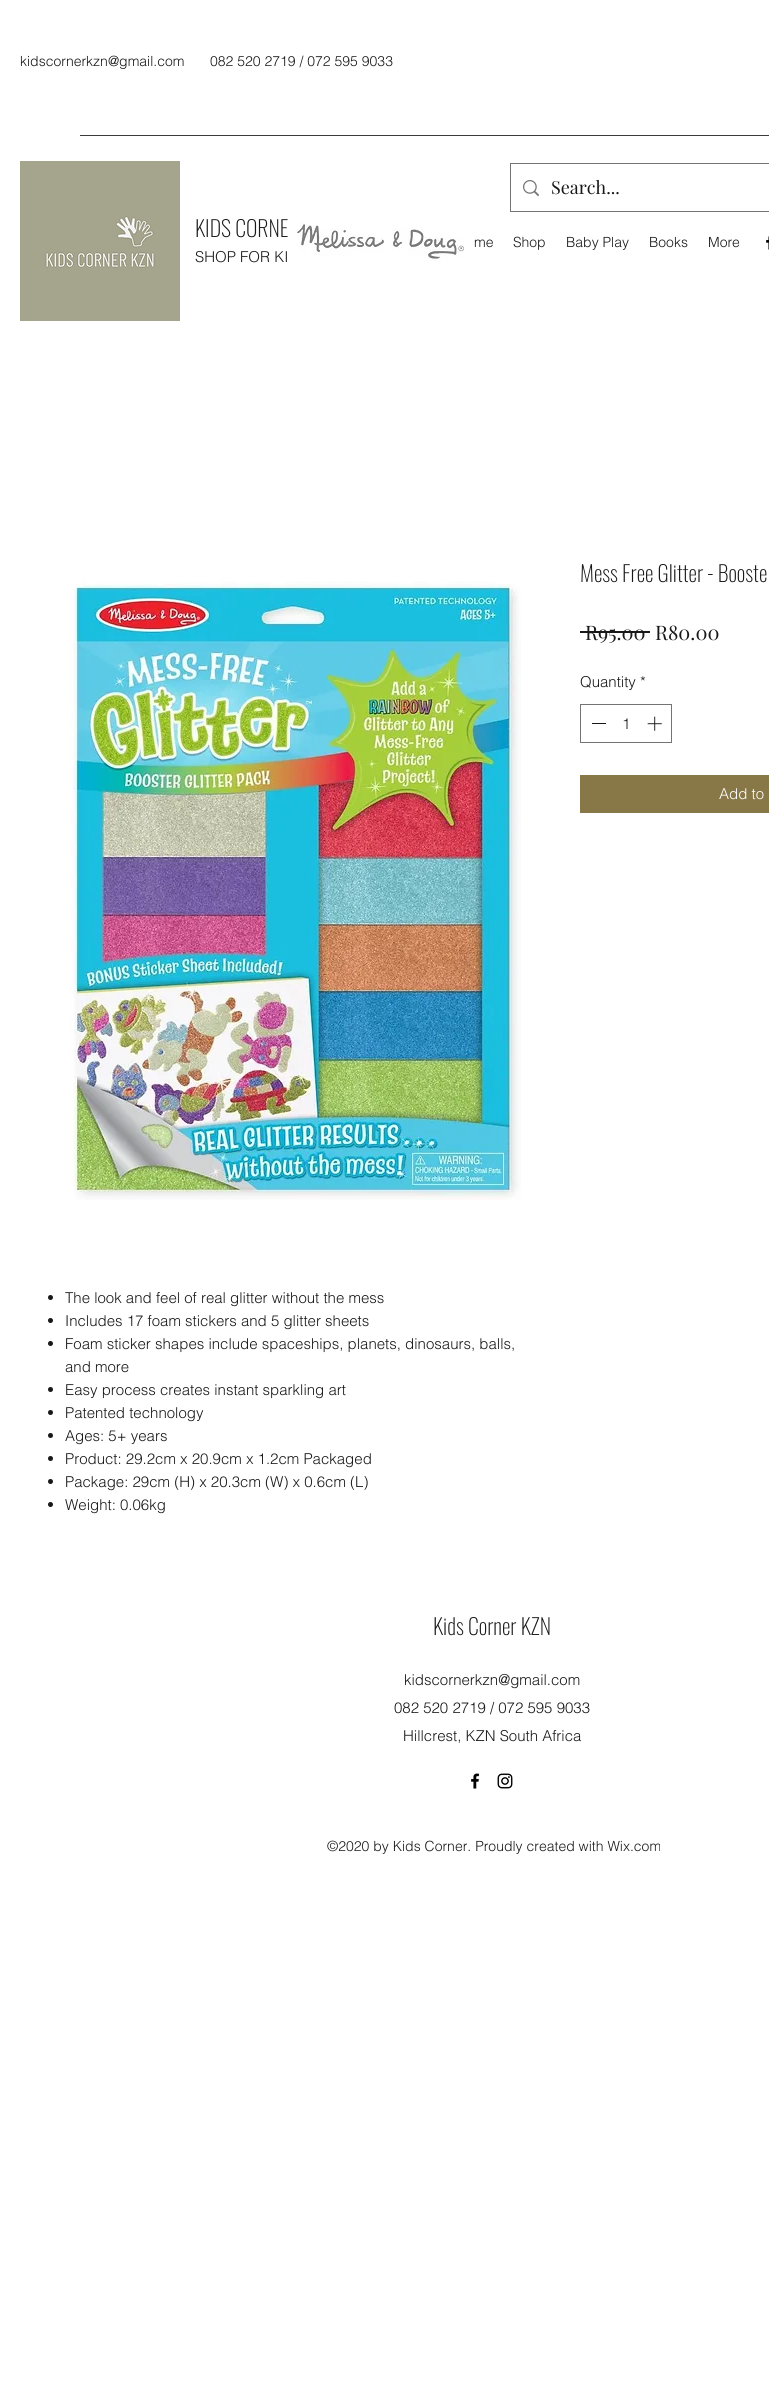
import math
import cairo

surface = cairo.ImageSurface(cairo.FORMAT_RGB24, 769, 2390)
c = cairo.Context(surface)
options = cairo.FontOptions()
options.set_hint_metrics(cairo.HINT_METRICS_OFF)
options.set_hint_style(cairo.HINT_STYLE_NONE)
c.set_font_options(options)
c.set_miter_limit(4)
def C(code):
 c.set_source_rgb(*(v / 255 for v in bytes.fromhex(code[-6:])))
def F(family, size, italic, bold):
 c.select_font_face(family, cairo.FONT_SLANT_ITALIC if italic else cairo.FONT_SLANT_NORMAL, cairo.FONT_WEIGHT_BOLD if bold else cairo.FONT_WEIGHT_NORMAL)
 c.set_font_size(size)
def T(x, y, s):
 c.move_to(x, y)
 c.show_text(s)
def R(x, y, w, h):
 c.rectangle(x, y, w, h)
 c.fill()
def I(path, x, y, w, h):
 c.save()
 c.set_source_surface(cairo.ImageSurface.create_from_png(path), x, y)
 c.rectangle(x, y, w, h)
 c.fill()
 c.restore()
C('ffffff')
c.paint()
F('helvetica Light',14,0,0)
C('181818')
T(20,66,'kidscornerkzn@gmail.com')
T(210,66,'082 520 2719 / 072 595 9033')
C('3b3b3b')
R(80,135,689,1)
I('1.png',20,161,160,160)
F('Oswald ExtraLight',22,0,0)
C('181818')
T(195,237,'KIDS CORNE')
F('helvetica Light',15,0,0)
T(195,262,'SHOP FOR KI')
c.rectangle(510.5,163.5,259,48)
C('747474')
c.set_line_width(1)
c.stroke()
I('2.png',523,180,16,16)
F('Playfair Display',18,0,0)
C('181818')
T(551,194,'Search...')
F('helvetica Light',14,0,0)
T(474,247,'me')
T(513,247,'Shop')
T(566,247,'Baby Play')
T(649,247,'Books')
T(708,247,'More')
I('3.png',766,236,3,14)
I('4.png',289,219,184,44)
F('Oswald ExtraLight',22,0,0)
T(580,582,'Mess Free Glitter - Booste')
F('Playfair Display',20,0,0)
T(585,640,'R95.00')
R(580,631,70,2)
T(655,640,'R80.00')
F('helvetica Light',15,0,0)
T(580,687,'Quantity *')
c.rectangle(580.5,704.5,91,38)
C('747474')
c.stroke()
C('181818')
R(592,723,14,1)
T(622,729,'1')
I('5.png',647,716,15,15)
C('897847')
R(580,775,189,38)
C('ffffff')
T(719,799,'Add to')
I('6.png',70,581,451,619)
C('181818')
c.arc(50.5,1297.5,2.5,0,2 * math.pi)
c.fill()
T(65,1303,'The look and feel of real glitter without the mess')
c.new_path()
c.arc(50.5,1320.5,2.5,0,2 * math.pi)
c.fill()
T(65,1326,'Includes 17 foam stickers and 5 glitter sheets')
c.new_path()
c.arc(50.5,1343.5,2.5,0,2 * math.pi)
c.fill()
T(65,1349,'Foam sticker shapes include spaceships, planets, dinosaurs, balls,')
T(65,1372,'and more')
c.new_path()
c.arc(50.5,1389.5,2.5,0,2 * math.pi)
c.fill()
T(65,1395,'Easy process creates instant sparkling art')
c.new_path()
c.arc(50.5,1412.5,2.5,0,2 * math.pi)
c.fill()
T(65,1418,'Patented technology')
c.new_path()
c.arc(50.5,1435.5,2.5,0,2 * math.pi)
c.fill()
T(65,1441,'Ages: 5+ years')
c.new_path()
c.arc(50.5,1458.5,2.5,0,2 * math.pi)
c.fill()
T(65,1464,'Product: 29.2cm x 20.9cm x 1.2cm Packaged')
c.new_path()
c.arc(50.5,1481.5,2.5,0,2 * math.pi)
c.fill()
T(65,1487,'Package: 29cm (H) x 20.3cm (W) x 0.6cm (L)')
c.new_path()
c.arc(50.5,1504.5,2.5,0,2 * math.pi)
c.fill()
T(65,1510,'Weight: 0.06kg')
F('Oswald ExtraLight',22,0,0)
T(433,1635,'Kids Corner KZN')
F('helvetica Light',15,0,0)
T(404,1685,'kidscornerkzn@gmail.com')
T(394,1713,'082 520 2719 / 072 595 9033')
T(403,1741,'Hillcrest, KZN South Africa')
I('7.png',471,1773,9,16)
I('8.png',497,1773,16,16)
F('helvetica Light',14,0,0)
T(327,1851,'©2020 by Kids Corner. Proudly created with Wix.com')
surface.write_to_png('o.png')
